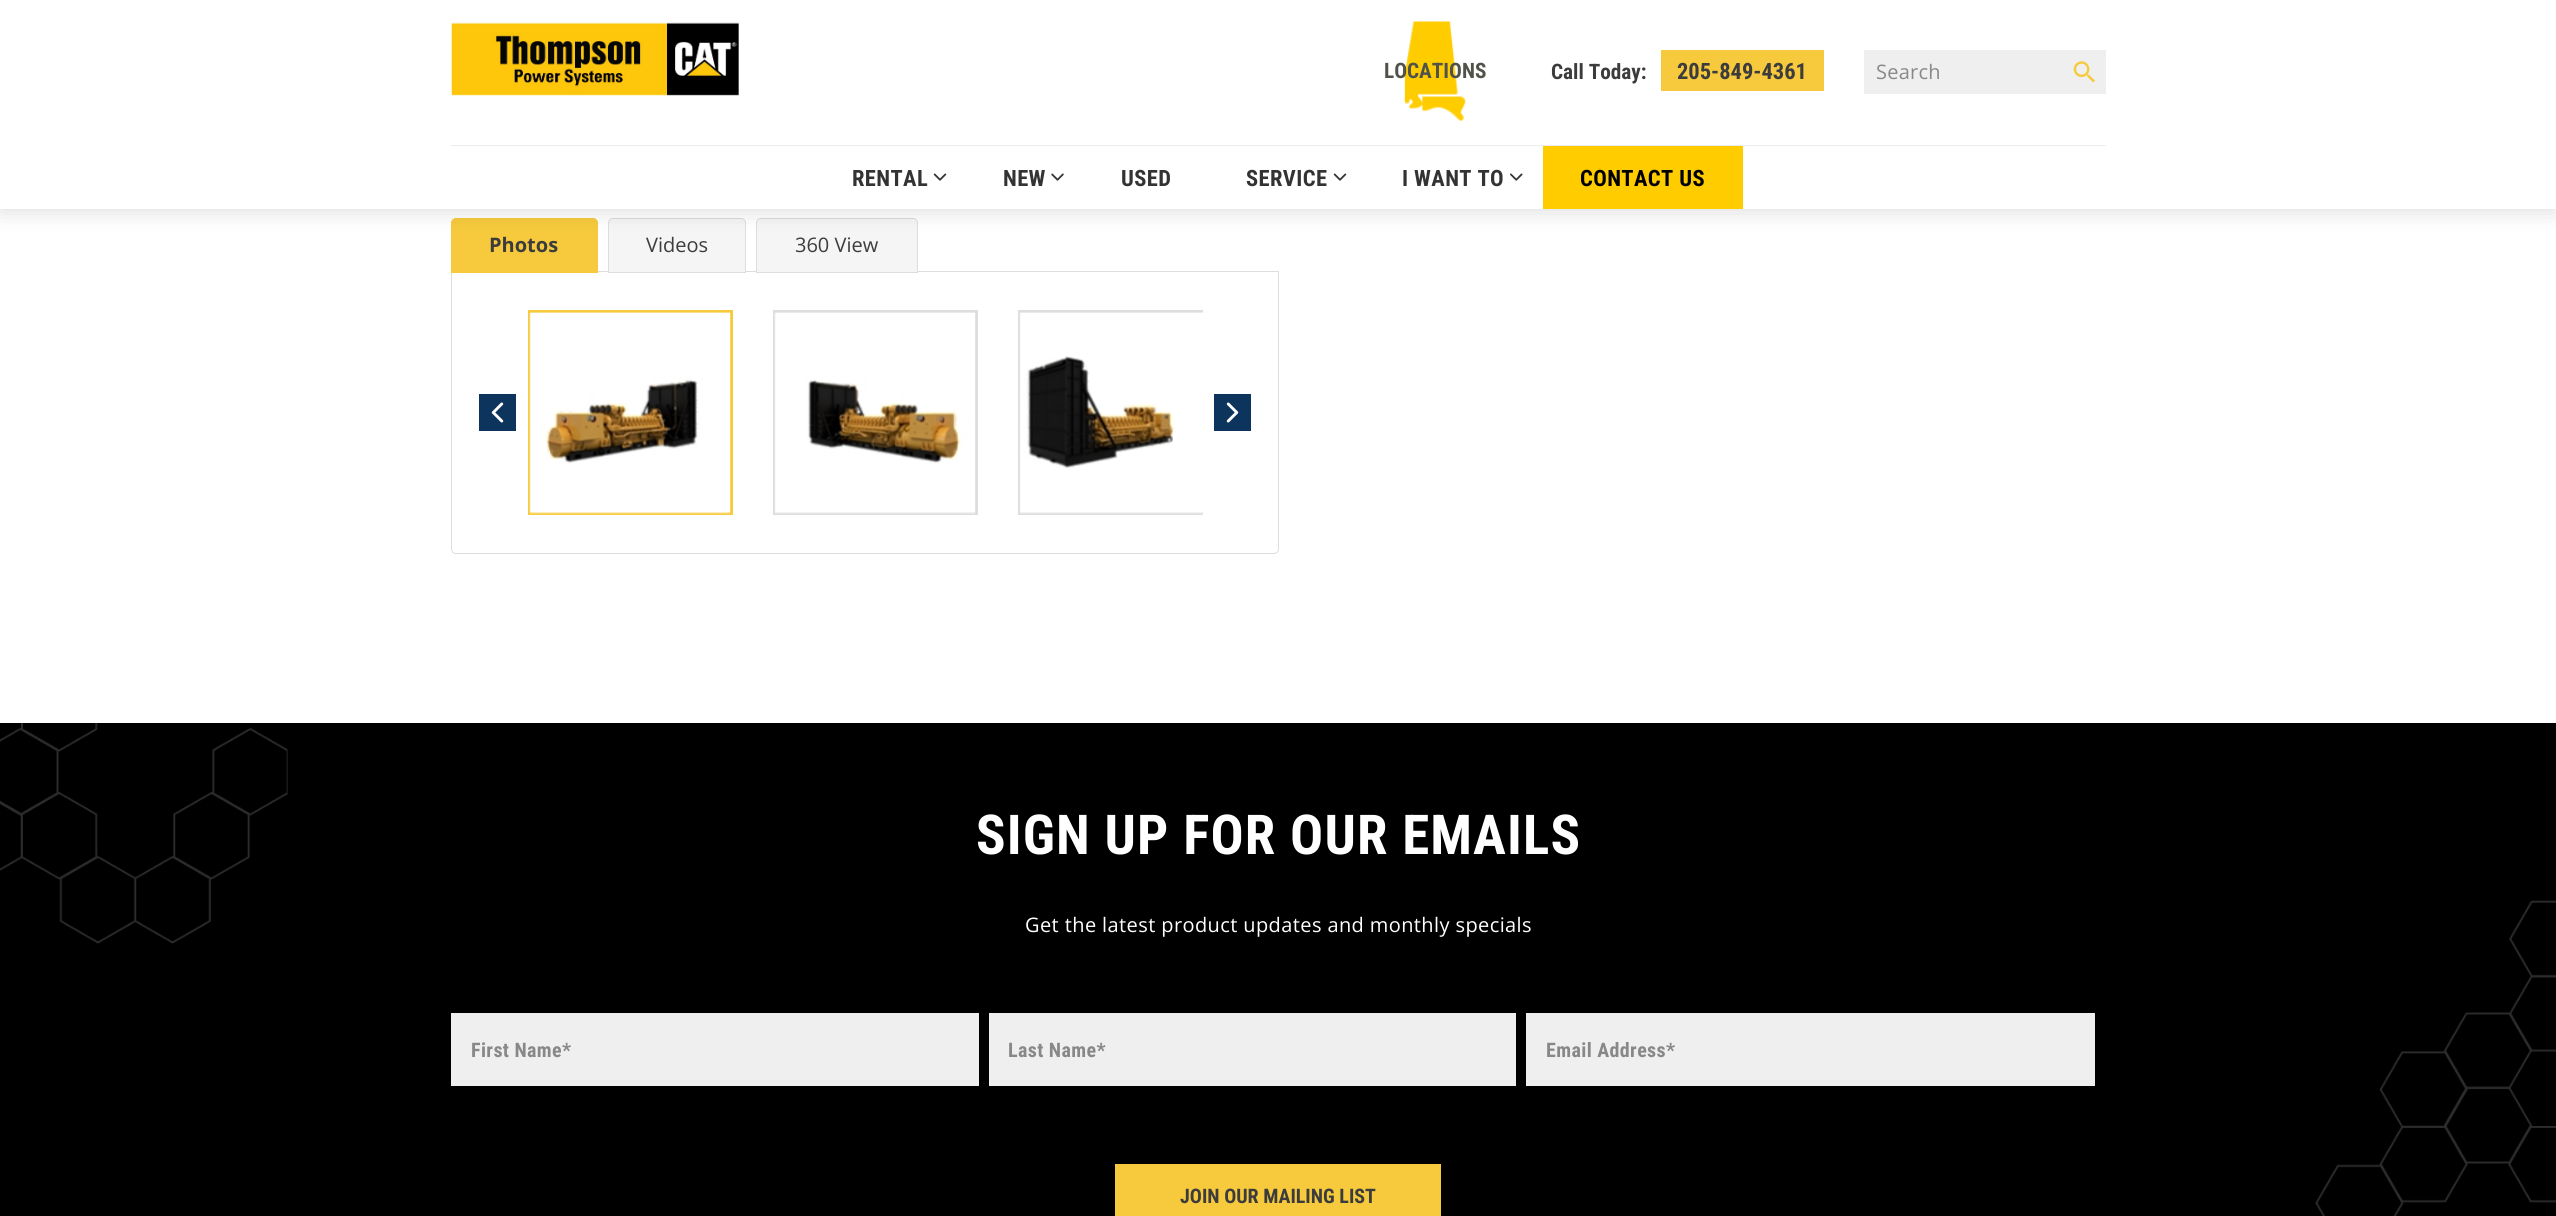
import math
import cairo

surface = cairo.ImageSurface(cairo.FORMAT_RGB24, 2556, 1216)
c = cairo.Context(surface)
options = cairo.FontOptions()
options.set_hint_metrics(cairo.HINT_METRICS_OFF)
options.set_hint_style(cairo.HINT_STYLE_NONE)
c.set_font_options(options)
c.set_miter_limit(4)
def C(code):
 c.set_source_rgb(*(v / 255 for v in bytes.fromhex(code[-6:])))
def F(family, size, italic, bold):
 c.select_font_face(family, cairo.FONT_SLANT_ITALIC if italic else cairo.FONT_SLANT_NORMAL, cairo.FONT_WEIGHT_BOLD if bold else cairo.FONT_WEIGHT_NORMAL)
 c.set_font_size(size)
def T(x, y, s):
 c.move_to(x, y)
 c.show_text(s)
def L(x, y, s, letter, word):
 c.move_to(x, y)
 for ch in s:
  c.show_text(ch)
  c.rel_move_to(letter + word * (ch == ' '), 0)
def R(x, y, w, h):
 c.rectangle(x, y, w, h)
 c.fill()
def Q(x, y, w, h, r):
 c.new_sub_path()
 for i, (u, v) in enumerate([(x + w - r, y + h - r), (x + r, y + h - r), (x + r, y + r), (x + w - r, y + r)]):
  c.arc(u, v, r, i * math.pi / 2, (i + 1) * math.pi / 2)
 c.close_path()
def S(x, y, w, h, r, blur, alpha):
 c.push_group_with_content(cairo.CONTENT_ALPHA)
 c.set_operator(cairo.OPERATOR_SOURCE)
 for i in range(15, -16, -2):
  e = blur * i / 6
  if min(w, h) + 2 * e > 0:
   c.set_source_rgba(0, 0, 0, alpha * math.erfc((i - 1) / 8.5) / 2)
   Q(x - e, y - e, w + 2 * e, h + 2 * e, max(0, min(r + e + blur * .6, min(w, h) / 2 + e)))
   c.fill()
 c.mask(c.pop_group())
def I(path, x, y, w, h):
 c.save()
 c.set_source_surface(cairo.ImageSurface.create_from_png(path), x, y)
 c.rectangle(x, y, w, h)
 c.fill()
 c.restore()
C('ffffff')
c.paint()
c.new_path()
c.move_to(451.5,271.5)
c.line_to(1278.5,271.5)
c.line_to(1278.5,549)
c.curve_to(1278.5,551.5,1276.5,553.5,1274,553.5)
c.line_to(456,553.5)
c.curve_to(453.5,553.5,451.5,551.5,451.5,549)
c.close_path()
C('dddddd')
c.set_line_width(1)
c.stroke()
C('f6ca3c')
c.new_path()
c.move_to(456,218.5)
c.line_to(593,218.5)
c.curve_to(595.5,218.5,597.5,220.5,597.5,223)
c.line_to(597.5,272.5)
c.line_to(451.5,272.5)
c.line_to(451.5,223)
c.curve_to(451.5,220.5,453.5,218.5,456,218.5)
c.close_path()
c.fill_preserve()
c.stroke()
C('f5f5f5')
c.new_path()
c.move_to(613,218.5)
c.line_to(741,218.5)
c.curve_to(743.5,218.5,745.5,220.5,745.5,223)
c.line_to(745.5,272.5)
c.line_to(608.5,272.5)
c.line_to(608.5,223)
c.curve_to(608.5,220.5,610.5,218.5,613,218.5)
c.close_path()
c.fill_preserve()
C('dddddd')
c.stroke()
C('f5f5f5')
c.new_path()
c.move_to(761,218.5)
c.line_to(913,218.5)
c.curve_to(915.5,218.5,917.5,220.5,917.5,223)
c.line_to(917.5,272.5)
c.line_to(756.5,272.5)
c.line_to(756.5,223)
c.curve_to(756.5,220.5,758.5,218.5,761,218.5)
c.close_path()
c.fill_preserve()
C('dddddd')
c.stroke()
C('000000')
S(0,0,2556,209,0,12.5,.16)
C('ffffff')
R(0,0,2556,209)
I('1.png',451,22,288,74)
I('2.png',1403,21,63,101)
F('Roboto Condensed',21.25,0,1)
C('51534a')
T(1384,78,'LOCATIONS')
C('3c3c3c')
T(1551,79,'Call Today:')
C('f6ca3c')
R(1661,50,163,41)
F('Roboto Condensed',22.5,0,1)
C('3c3c3c')
T(1677,79,'205-849-4361')
C('efefef')
R(1864,50,242,44)
F('Open Sans',20,0,0)
C('888888')
L(1876,79,'Search',.25,0)
I('3.png',2073,61,22,22)
C('ededed')
R(451,145,1655,1)
F('Roboto Condensed',22.5,0,1)
C('333333')
L(852,186,'RENTAL',.4,0)
I('4.png',933,173,14,8)
L(1003,186,'NEW',.4,0)
I('5.png',1051,173,13,8)
L(1121,186,'USED',.4,0)
L(1246,186,'SERVICE',.4,0)
I('4.png',1333,173,14,8)
L(1402,186,'I WANT TO',.4,0)
I('6.png',1510,173,13,8)
C('ffcc00')
R(1543,146,200,63)
C('000000')
L(1580,186,'CONTACT US',.4,0)
F('Open Sans',20,0,1)
C('3c3c3c')
T(489,252,'Photos')
F('Open Sans',20,0,0)
T(646,252,'Videos')
T(795,252,'360 View')
C('0d345c')
R(479,394,37,37)
I('7.png',491,402,13,21)
c.rectangle(529.5,311.5,202,202)
C('f6ca3c')
c.set_line_width(3)
c.stroke()
I('8.png',529,312,202,202)
c.rectangle(774.5,311.5,202,202)
C('dddddd')
c.stroke()
I('9.png',774,312,202,202)
c.save()
c.rectangle(528,310,675,205)
c.clip()
c.rectangle(1019.5,311.5,202,202)
c.stroke()
c.restore()
I('10.png',1019,312,184,202)
C('0d345c')
R(1214,394,37,37)
I('11.png',1226,402,13,21)
C('000000')
R(0,723,2556,493)
I('12.png',0,723,288,221)
F('Roboto Condensed',55,0,1)
C('ffffff')
L(976,854,'SIGN UP FOR OUR EMAILS',1.1,0)
F('Open Sans',20,0,0)
L(1025,932,'Get the latest product updates and monthly specials',.4,0)
C('efefef')
R(451,1013,528,73)
F('Roboto Condensed',20,0,1)
C('888888')
L(471,1057,'First Name*',.4,0)
C('efefef')
R(989,1013,527,73)
C('888888')
L(1008,1057,'Last Name*',.4,0)
C('efefef')
R(1526,1013,569,73)
C('888888')
L(1546,1057,'Email Address*',.4,0)
C('f6ca3c')
R(1115,1164,326,52)
C('3c3c3c')
T(1180,1203,'JOIN OUR MAILING LIST')
I('13.png',2315,900,241,316)
surface.write_to_png('o.png')
